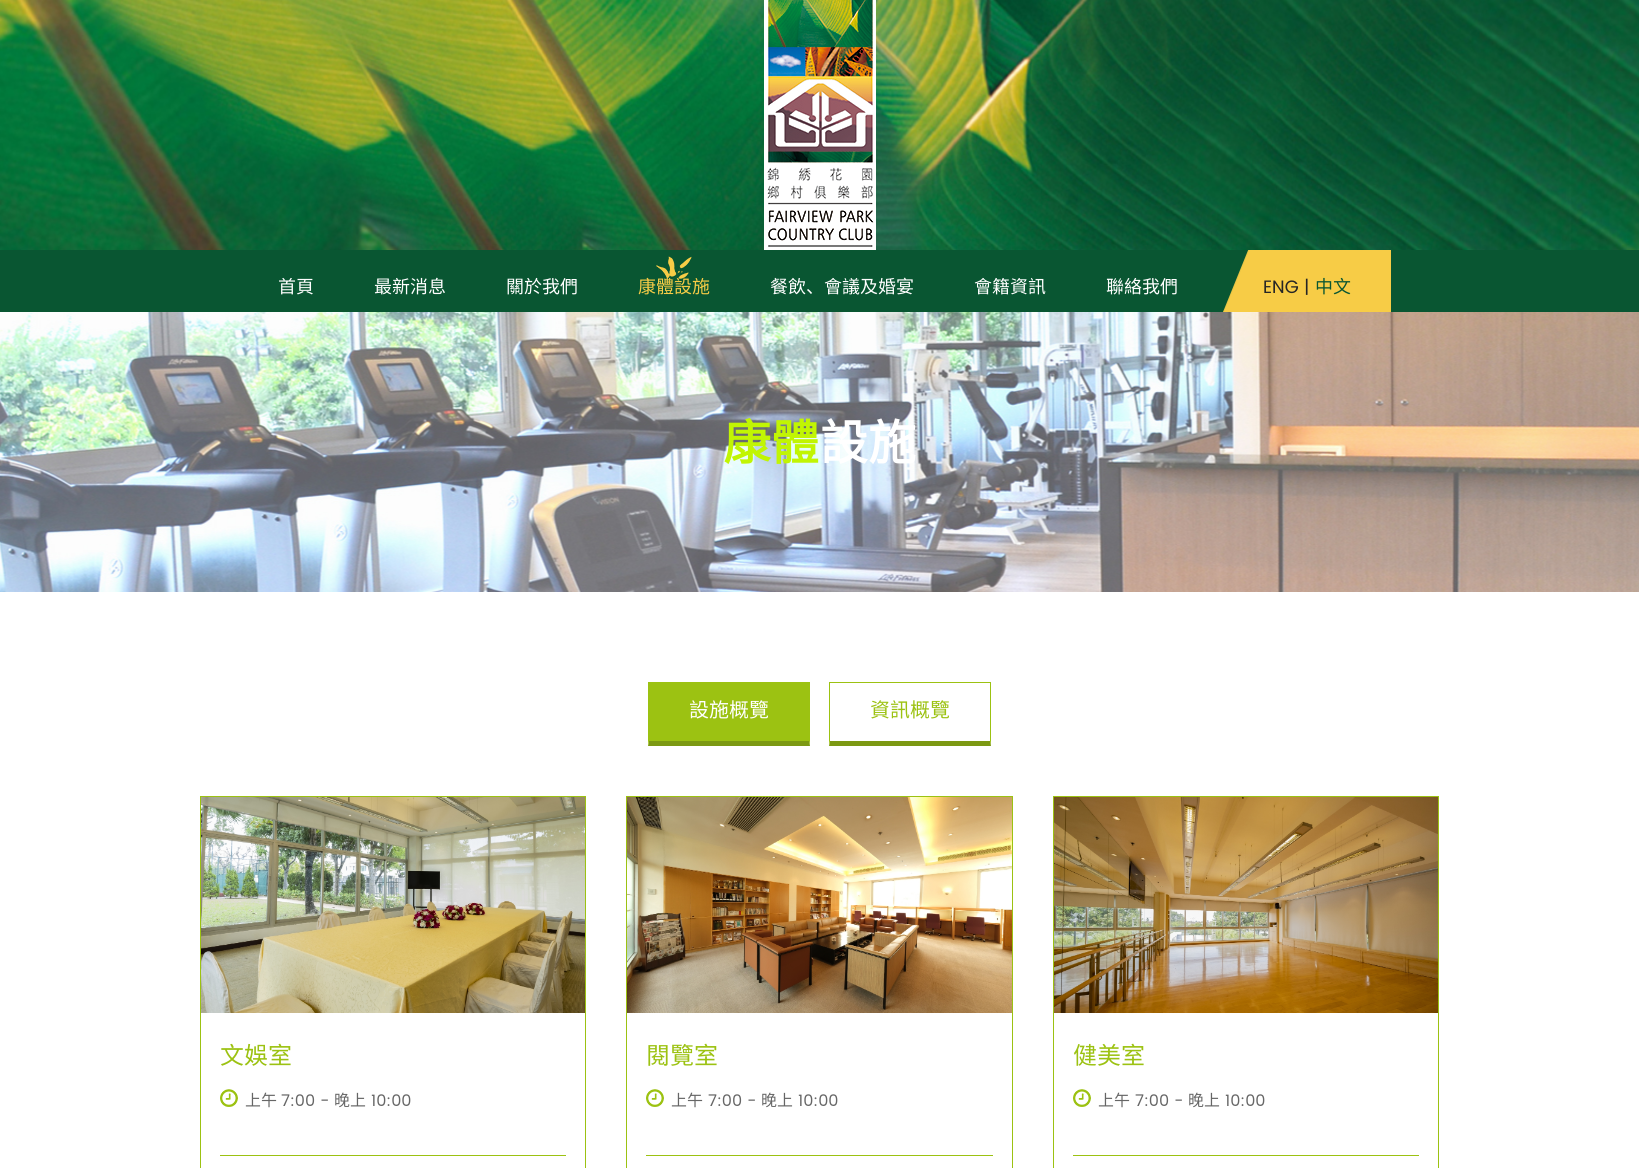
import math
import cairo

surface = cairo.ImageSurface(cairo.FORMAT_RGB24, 1639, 1168)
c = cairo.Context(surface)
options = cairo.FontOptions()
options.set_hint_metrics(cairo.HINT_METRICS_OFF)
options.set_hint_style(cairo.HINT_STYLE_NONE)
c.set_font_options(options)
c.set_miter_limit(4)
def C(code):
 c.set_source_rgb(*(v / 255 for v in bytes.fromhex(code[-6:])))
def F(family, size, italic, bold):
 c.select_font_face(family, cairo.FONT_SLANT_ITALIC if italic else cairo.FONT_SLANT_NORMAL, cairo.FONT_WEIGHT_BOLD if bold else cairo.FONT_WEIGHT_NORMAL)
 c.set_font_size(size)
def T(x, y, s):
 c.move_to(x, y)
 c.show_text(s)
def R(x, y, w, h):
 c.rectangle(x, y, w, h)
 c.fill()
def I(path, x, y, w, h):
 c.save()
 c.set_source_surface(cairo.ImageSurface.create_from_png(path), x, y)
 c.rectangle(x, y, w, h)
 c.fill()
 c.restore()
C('ffffff')
c.paint()
I('1.png',0,0,1639,250)
I('2.png',764,0,112,250)
C('095632')
R(0,250,1639,62)
F('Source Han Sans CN',18,0,0)
C('ffffff')
T(278,293,'首頁')
T(374,293,'最新消息')
T(506,293,'關於我們')
I('3.png',656,256,36,28)
C('f7cc46')
T(638,293,'康體設施')
C('ffffff')
T(770,293,'餐飲、會議及婚宴')
T(974,293,'會籍資訊')
T(1106,293,'聯絡我們')
I('4.png',1223,250,168,62)
F('Poppins',18,0,0)
C('252525')
T(1263,293,'ENG |')
F('Source Han Sans CN',18,0,0)
C('095632')
T(1315,293,'中文')
I('5.png',0,312,1639,280)
F('Source Han Sans CN',48,0,1)
C('c1f503')
T(723,460,'康體')
C('ffffff')
T(820,460,'設施')
C('9cc212')
R(649,683,160,58)
R(648,682,162,1)
c.new_path()
c.move_to(810,682)
c.line_to(810,746)
c.line_to(809,741)
c.line_to(809,683)
c.close_path()
c.fill()
C('7c9913')
c.new_path()
c.move_to(810,746)
c.line_to(648,746)
c.line_to(649,741)
c.line_to(809,741)
c.close_path()
c.fill()
C('9cc212')
c.new_path()
c.move_to(648,746)
c.line_to(648,682)
c.line_to(649,683)
c.line_to(649,741)
c.close_path()
c.fill()
F('Source Han Sans CN',20,0,0)
C('ffffff')
T(689,717,'設施概覽')
C('9cc212')
R(829,682,162,1)
c.new_path()
c.move_to(991,682)
c.line_to(991,746)
c.line_to(990,741)
c.line_to(990,683)
c.close_path()
c.fill()
C('7c9913')
c.new_path()
c.move_to(991,746)
c.line_to(829,746)
c.line_to(830,741)
c.line_to(990,741)
c.close_path()
c.fill()
C('9cc212')
c.new_path()
c.move_to(829,746)
c.line_to(829,682)
c.line_to(830,683)
c.line_to(830,741)
c.close_path()
c.fill()
T(870,717,'資訊概覽')
I('6.png',201,797,384,216)
c.rectangle(200.5,796.5,385,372)
c.set_line_width(1)
c.stroke()
F('Source Han Sans CN',24,0,0)
T(220,1064,'文娛室')
R(220,1155,346,1)
I('7.png',220,1089,18,18)
F('Source Han Sans CN',16,0,0)
C('666666')
T(245,1106,'上午')
F('Poppins',16,0,0)
T(281,1106,'7:00 -')
F('Source Han Sans CN',16,0,0)
T(334,1106,'晚上')
F('Poppins',16,0,0)
T(371,1106,'10:00')
I('8.png',627,797,385,216)
c.rectangle(626.5,796.5,386,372)
C('9cc212')
c.stroke()
F('Source Han Sans CN',24,0,0)
T(646,1064,'閱覽室')
R(646,1155,347,1)
I('7.png',646,1089,18,18)
F('Source Han Sans CN',16,0,0)
C('666666')
T(671,1106,'上午')
F('Poppins',16,0,0)
T(708,1106,'7:00 -')
F('Source Han Sans CN',16,0,0)
T(761,1106,'晚上')
F('Poppins',16,0,0)
T(798,1106,'10:00')
I('9.png',1054,797,384,216)
c.rectangle(1053.5,796.5,385,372)
C('9cc212')
c.stroke()
F('Source Han Sans CN',24,0,0)
T(1073,1064,'健美室')
R(1073,1155,346,1)
I('7.png',1073,1089,18,18)
F('Source Han Sans CN',16,0,0)
C('666666')
T(1098,1106,'上午')
F('Poppins',16,0,0)
T(1135,1106,'7:00 -')
F('Source Han Sans CN',16,0,0)
T(1188,1106,'晚上')
F('Poppins',16,0,0)
T(1225,1106,'10:00')
surface.write_to_png('o.png')
